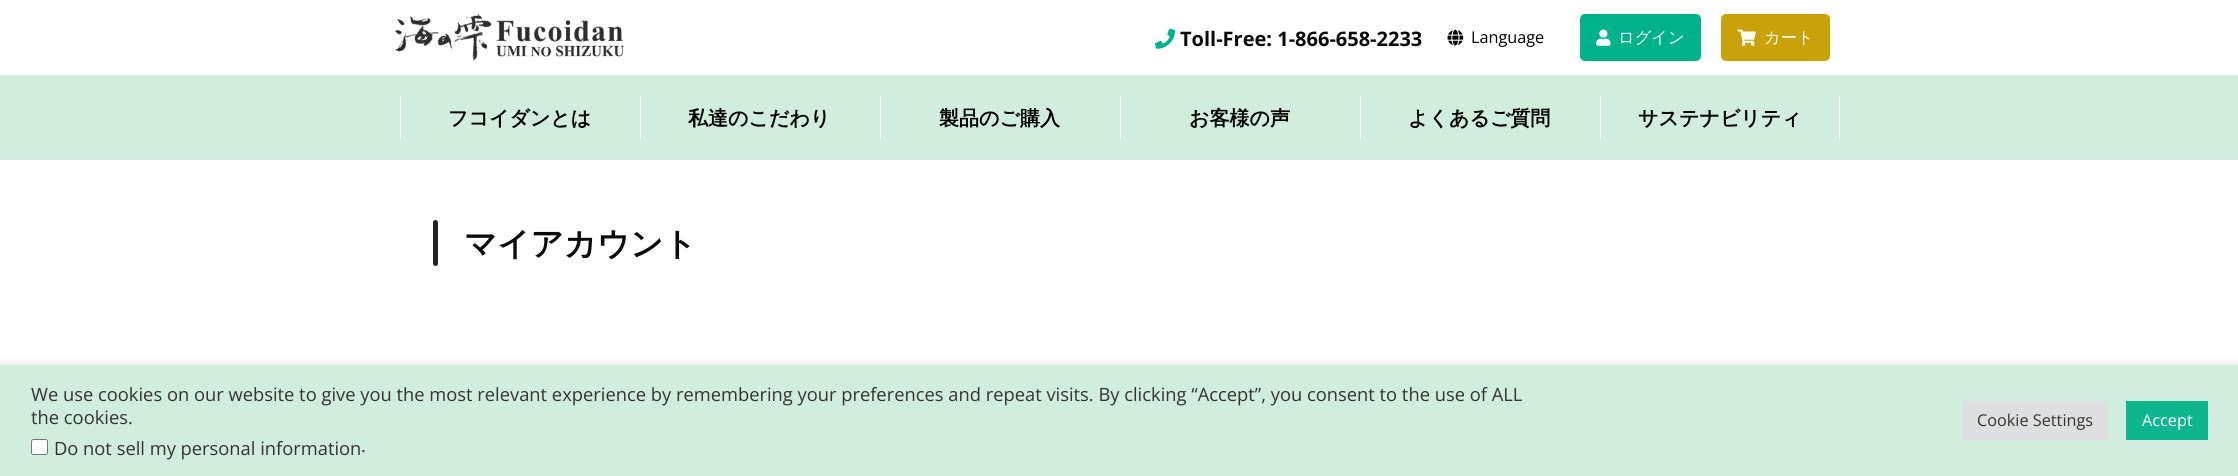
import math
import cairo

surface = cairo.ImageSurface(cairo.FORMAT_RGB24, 2238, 476)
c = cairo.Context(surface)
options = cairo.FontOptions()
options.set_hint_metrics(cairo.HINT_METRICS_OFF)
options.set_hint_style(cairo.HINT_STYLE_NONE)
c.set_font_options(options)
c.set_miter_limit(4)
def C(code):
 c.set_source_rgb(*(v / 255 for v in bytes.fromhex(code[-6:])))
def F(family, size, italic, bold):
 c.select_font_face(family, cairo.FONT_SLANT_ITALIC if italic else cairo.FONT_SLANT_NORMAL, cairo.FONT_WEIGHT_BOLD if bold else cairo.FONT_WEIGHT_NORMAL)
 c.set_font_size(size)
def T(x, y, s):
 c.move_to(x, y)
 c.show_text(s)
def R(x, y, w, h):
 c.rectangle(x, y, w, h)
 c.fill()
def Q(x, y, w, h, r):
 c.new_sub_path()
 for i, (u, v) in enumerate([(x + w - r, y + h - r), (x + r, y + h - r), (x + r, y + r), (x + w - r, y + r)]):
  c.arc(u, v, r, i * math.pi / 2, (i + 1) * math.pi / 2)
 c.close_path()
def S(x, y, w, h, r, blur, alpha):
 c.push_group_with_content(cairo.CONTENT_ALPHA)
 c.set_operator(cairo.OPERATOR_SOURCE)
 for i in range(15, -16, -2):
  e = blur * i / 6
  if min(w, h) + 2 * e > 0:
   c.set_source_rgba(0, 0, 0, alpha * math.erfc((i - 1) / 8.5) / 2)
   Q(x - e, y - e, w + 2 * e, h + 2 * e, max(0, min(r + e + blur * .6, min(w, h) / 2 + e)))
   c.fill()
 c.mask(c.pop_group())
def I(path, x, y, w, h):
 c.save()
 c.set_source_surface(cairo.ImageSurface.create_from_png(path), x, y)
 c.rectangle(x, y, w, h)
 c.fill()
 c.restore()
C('ffffff')
c.paint()
I('1.png',395,13,229,48)
I('2.png',1155,28,20,21)
F('Open Sans',20,0,1)
C('0a0a0a')
T(1180,46,'Toll-Free: 1-866-658-2233')
I('3.png',1447,29,17,17)
F('Open Sans',16.25,0,0)
C('000000')
T(1471,43,'Language')
C('00b289')
Q(1580,14,121,47,5)
c.fill()
I('4.png',1596,29,15,17)
F('WenQuanYi Zen Hei Medium',16.25,0,0)
C('ffffff')
T(1618,43,'ログイン')
C('c8a208')
Q(1721,14,109,47,5)
c.fill()
I('5.png',1737,29,19,17)
C('ffffff')
T(1764,43,'カート')
C('d0eedb')
R(0,75,2238,85)
C('ffffff')
R(400,96,1,43)
F('WenQuanYi Zen Hei',20,0,1)
C('000000')
T(448,125,'フコイダンとは')
C('ffffff')
R(640,96,1,43)
C('000000')
T(688,125,'私達のこだわり')
C('ffffff')
R(880,96,1,43)
C('000000')
T(939,125,'製品のご購入')
C('ffffff')
R(1120,96,1,43)
C('000000')
T(1189,125,'お客様の声')
C('ffffff')
R(1360,96,1,43)
C('000000')
T(1408,125,'よくあるご質問')
C('ffffff')
R(1600,96,1,43)
C('000000')
T(1638,125,'サステナビリティ')
C('ffffff')
R(1839,96,1,43)
C('222222')
Q(433,220,5,46,2.5)
c.fill()
F('WenQuanYi Zen Hei',32.5,0,1)
C('0a0a0a')
T(464,255,'マイアカウント')
C('acabab')
S(0,364,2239,111,0,6,.3)
C('d0eedb')
R(0,365,2238,111)
F('Open Sans',18.33,0,0)
C('333333')
T(31,401,'We use cookies on our website to give you the most relevant experience by remembering your preferences and repeat visits. By clicking “Accept”, you consent to the use of ALL')
T(31,424,'the cookies.')
C('ffffff')
Q(31.5,439.5,16,15,2)
c.fill_preserve()
C('767676')
c.set_line_width(1)
c.stroke()
C('333333')
T(54,455,'Do not sell my personal information')
T(361,452,'.')
C('dedfe0')
R(1963,401,145,39)
F('Open Sans',16.25,0,0)
C('333333')
T(1977,426,'Cookie Settings')
C('0db68f')
R(2126,401,82,39)
C('ffffff')
T(2142,426,'Accept')
surface.write_to_png('o.png')
